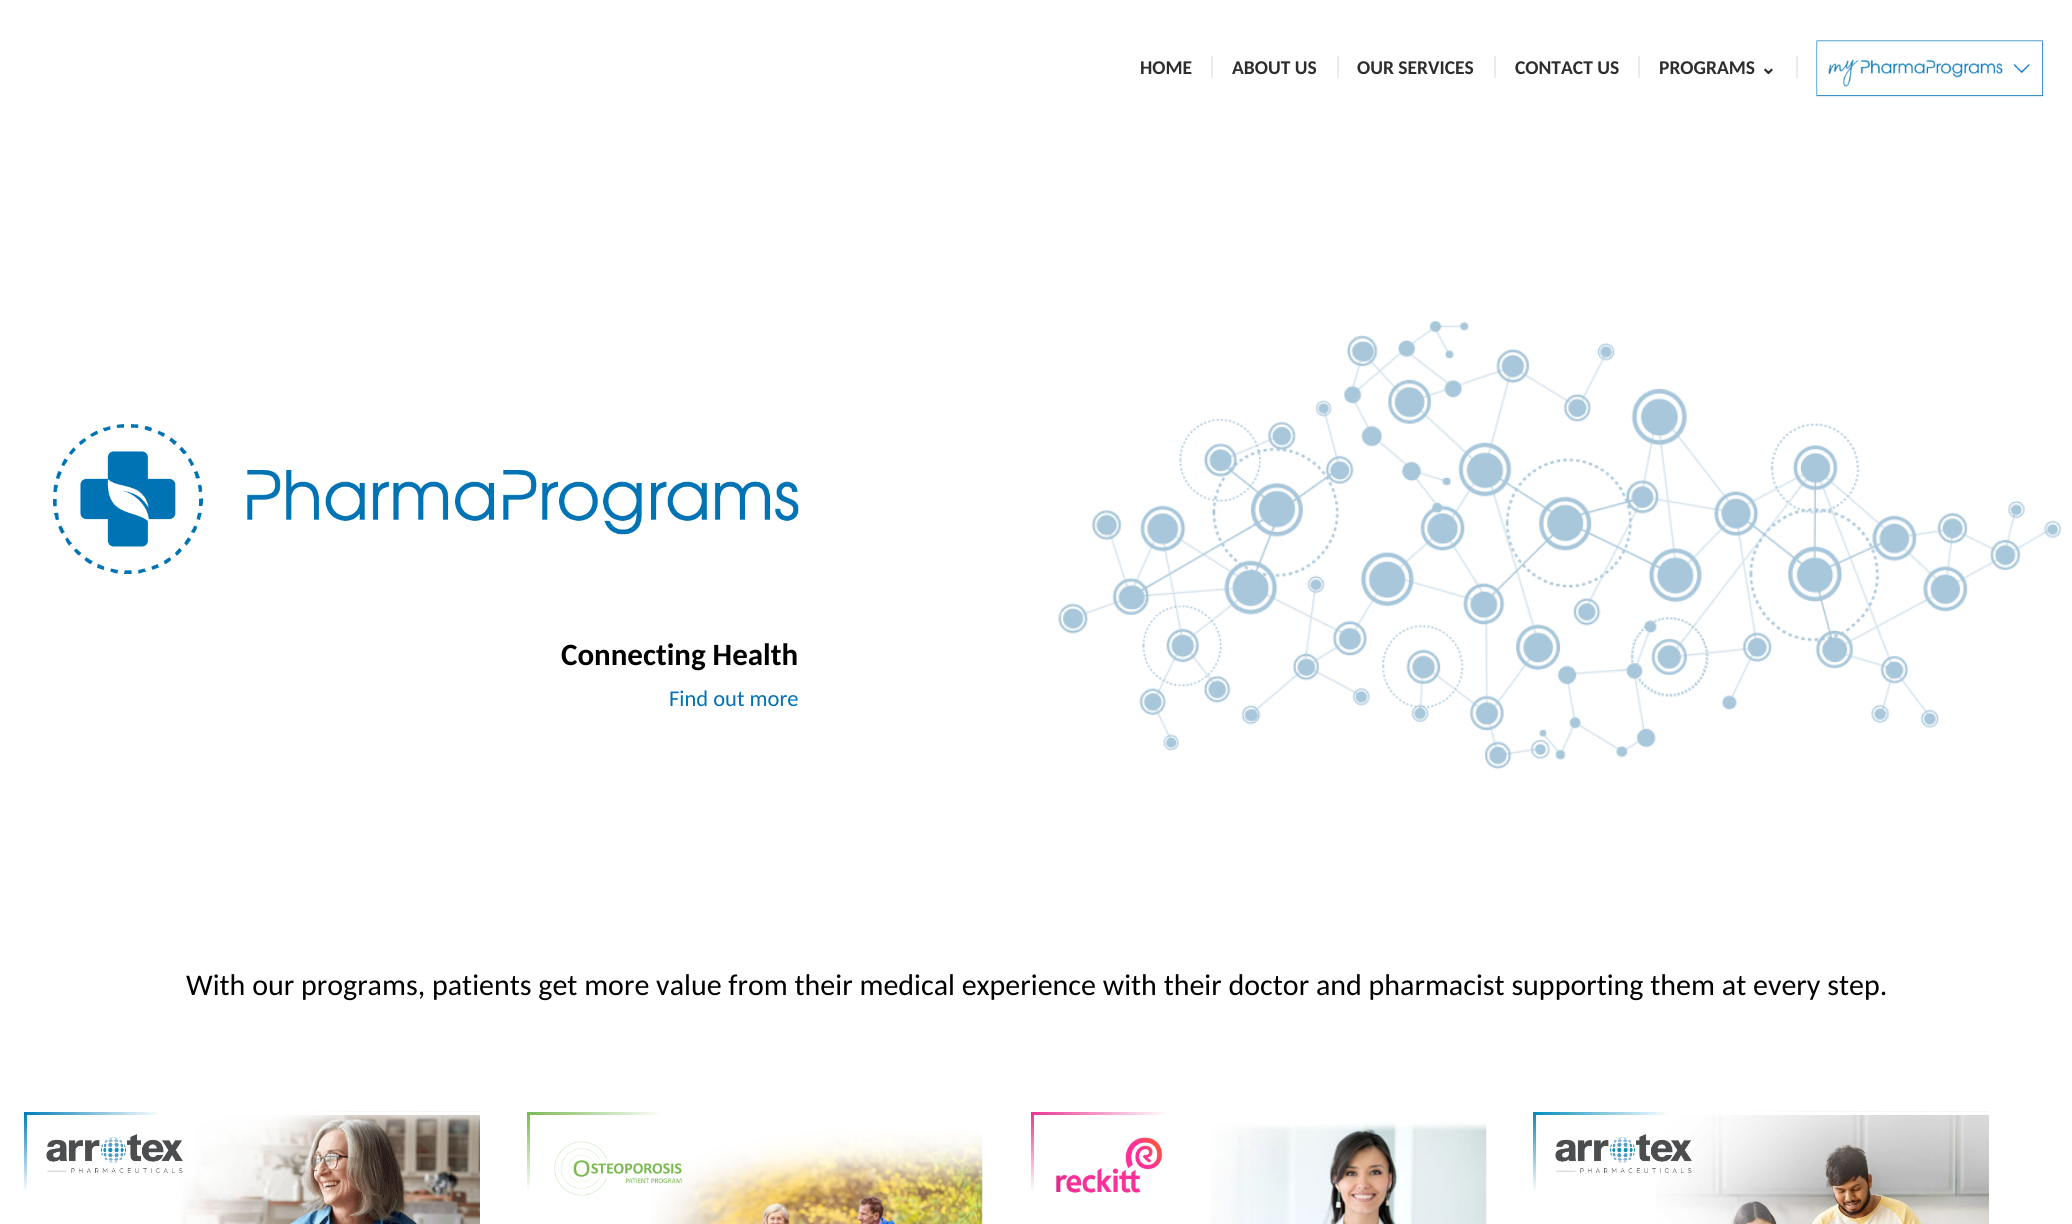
import math
import cairo

surface = cairo.ImageSurface(cairo.FORMAT_RGB24, 2072, 1224)
c = cairo.Context(surface)
options = cairo.FontOptions()
options.set_hint_metrics(cairo.HINT_METRICS_OFF)
options.set_hint_style(cairo.HINT_STYLE_NONE)
c.set_font_options(options)
c.set_miter_limit(4)
def C(code):
 c.set_source_rgb(*(v / 255 for v in bytes.fromhex(code[-6:])))
def F(family, size, italic, bold):
 c.select_font_face(family, cairo.FONT_SLANT_ITALIC if italic else cairo.FONT_SLANT_NORMAL, cairo.FONT_WEIGHT_BOLD if bold else cairo.FONT_WEIGHT_NORMAL)
 c.set_font_size(size)
def T(x, y, s):
 c.move_to(x, y)
 c.show_text(s)
def R(x, y, w, h):
 c.rectangle(x, y, w, h)
 c.fill()
def I(path, x, y, w, h):
 c.save()
 c.set_source_surface(cairo.ImageSurface.create_from_png(path), x, y)
 c.rectangle(x, y, w, h)
 c.fill()
 c.restore()
C('ffffff')
c.paint()
F('Carlito',19.5,0,1)
C('2d2d2d')
T(1140,74,'HOME')
T(1232,74,'ABOUT US')
C('ebebeb')
R(1211,56,2,22)
C('2d2d2d')
T(1357,74,'OUR SERVICES')
C('ebebeb')
R(1337,56,2,22)
C('2d2d2d')
T(1515,74,'CONTACT US')
C('ebebeb')
R(1494,56,2,22)
C('2d2d2d')
T(1659,74,'PROGRAMS')
C('ebebeb')
R(1638,56,2,22)
F('DejaVu Sans',19.5,0,1)
C('2d2d2d')
T(1760,74,'⌄')
C('ebebeb')
R(1796,56,2,22)
I('1.png',1816,40,227,57)
I('2.png',1058,321,1004,449)
I('3.png',53,424,746,150)
F('Carlito',31,0,1)
C('000000')
T(561,665,'Connecting Health')
F('Carlito',22.5,0,0)
C('0072b4')
T(669,706,'Find out more')
F('Carlito',30,0,0)
C('000000')
T(186,995,'With our programs, patients get more value from their medical experience with their doctor and pharmacist supporting them at every step.')
gradient = cairo.LinearGradient(25,1112,26,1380)
gradient.add_color_stop_rgba(0,0,0.486,0.729,1)
gradient.add_color_stop_rgba(.3,1,1,1,1)
c.set_source(gradient)
R(24,1112,3,80)
I('5.png',180,1111,300,113)
I('4.png',46,1134,137,39)
gradient = cairo.LinearGradient(24,1113,480,1113)
gradient.add_color_stop_rgba(0,0,0.486,0.729,1)
gradient.add_color_stop_rgba(.3,1,1,1,1)
c.set_source(gradient)
R(24,1112,456,3)
gradient = cairo.LinearGradient(528,1112,528,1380)
gradient.add_color_stop_rgba(0,0.482,0.725,0.322,1)
gradient.add_color_stop_rgba(.3,1,1,1,1)
c.set_source(gradient)
R(527,1112,3,79)
gradient = cairo.LinearGradient(527,1113,983,1113)
gradient.add_color_stop_rgba(0,0.482,0.725,0.322,1)
gradient.add_color_stop_rgba(.3,1,1,1,1)
c.set_source(gradient)
R(527,1112,135,3)
I('7.png',651,1130,332,94)
I('6.png',554,1141,128,55)
gradient = cairo.LinearGradient(1032,1112,1032,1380)
gradient.add_color_stop_rgba(0,0.918,0.212,0.573,1)
gradient.add_color_stop_rgba(.3,1,1,1,1)
c.set_source(gradient)
R(1031,1112,3,79)
gradient = cairo.LinearGradient(1031,1113,1487,1113)
gradient.add_color_stop_rgba(0,0.918,0.212,0.573,1)
gradient.add_color_stop_rgba(.3,1,1,1,1)
c.set_source(gradient)
R(1031,1112,135,3)
I('8.png',1056,1137,107,56)
I('9.png',1211,1122,276,102)
gradient = cairo.LinearGradient(1535,1112,1535,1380)
gradient.add_color_stop_rgba(0,0,0.553,0.737,1)
gradient.add_color_stop_rgba(.3,1,1,1,1)
c.set_source(gradient)
R(1533,1112,3,80)
I('11.png',1656,1111,333,113)
I('10.png',1555,1134,137,39)
gradient = cairo.LinearGradient(1533,1113,1989,1113)
gradient.add_color_stop_rgba(0,0,0.553,0.737,1)
gradient.add_color_stop_rgba(.3,1,1,1,1)
c.set_source(gradient)
R(1533,1112,456,3)
surface.write_to_png('o.png')
